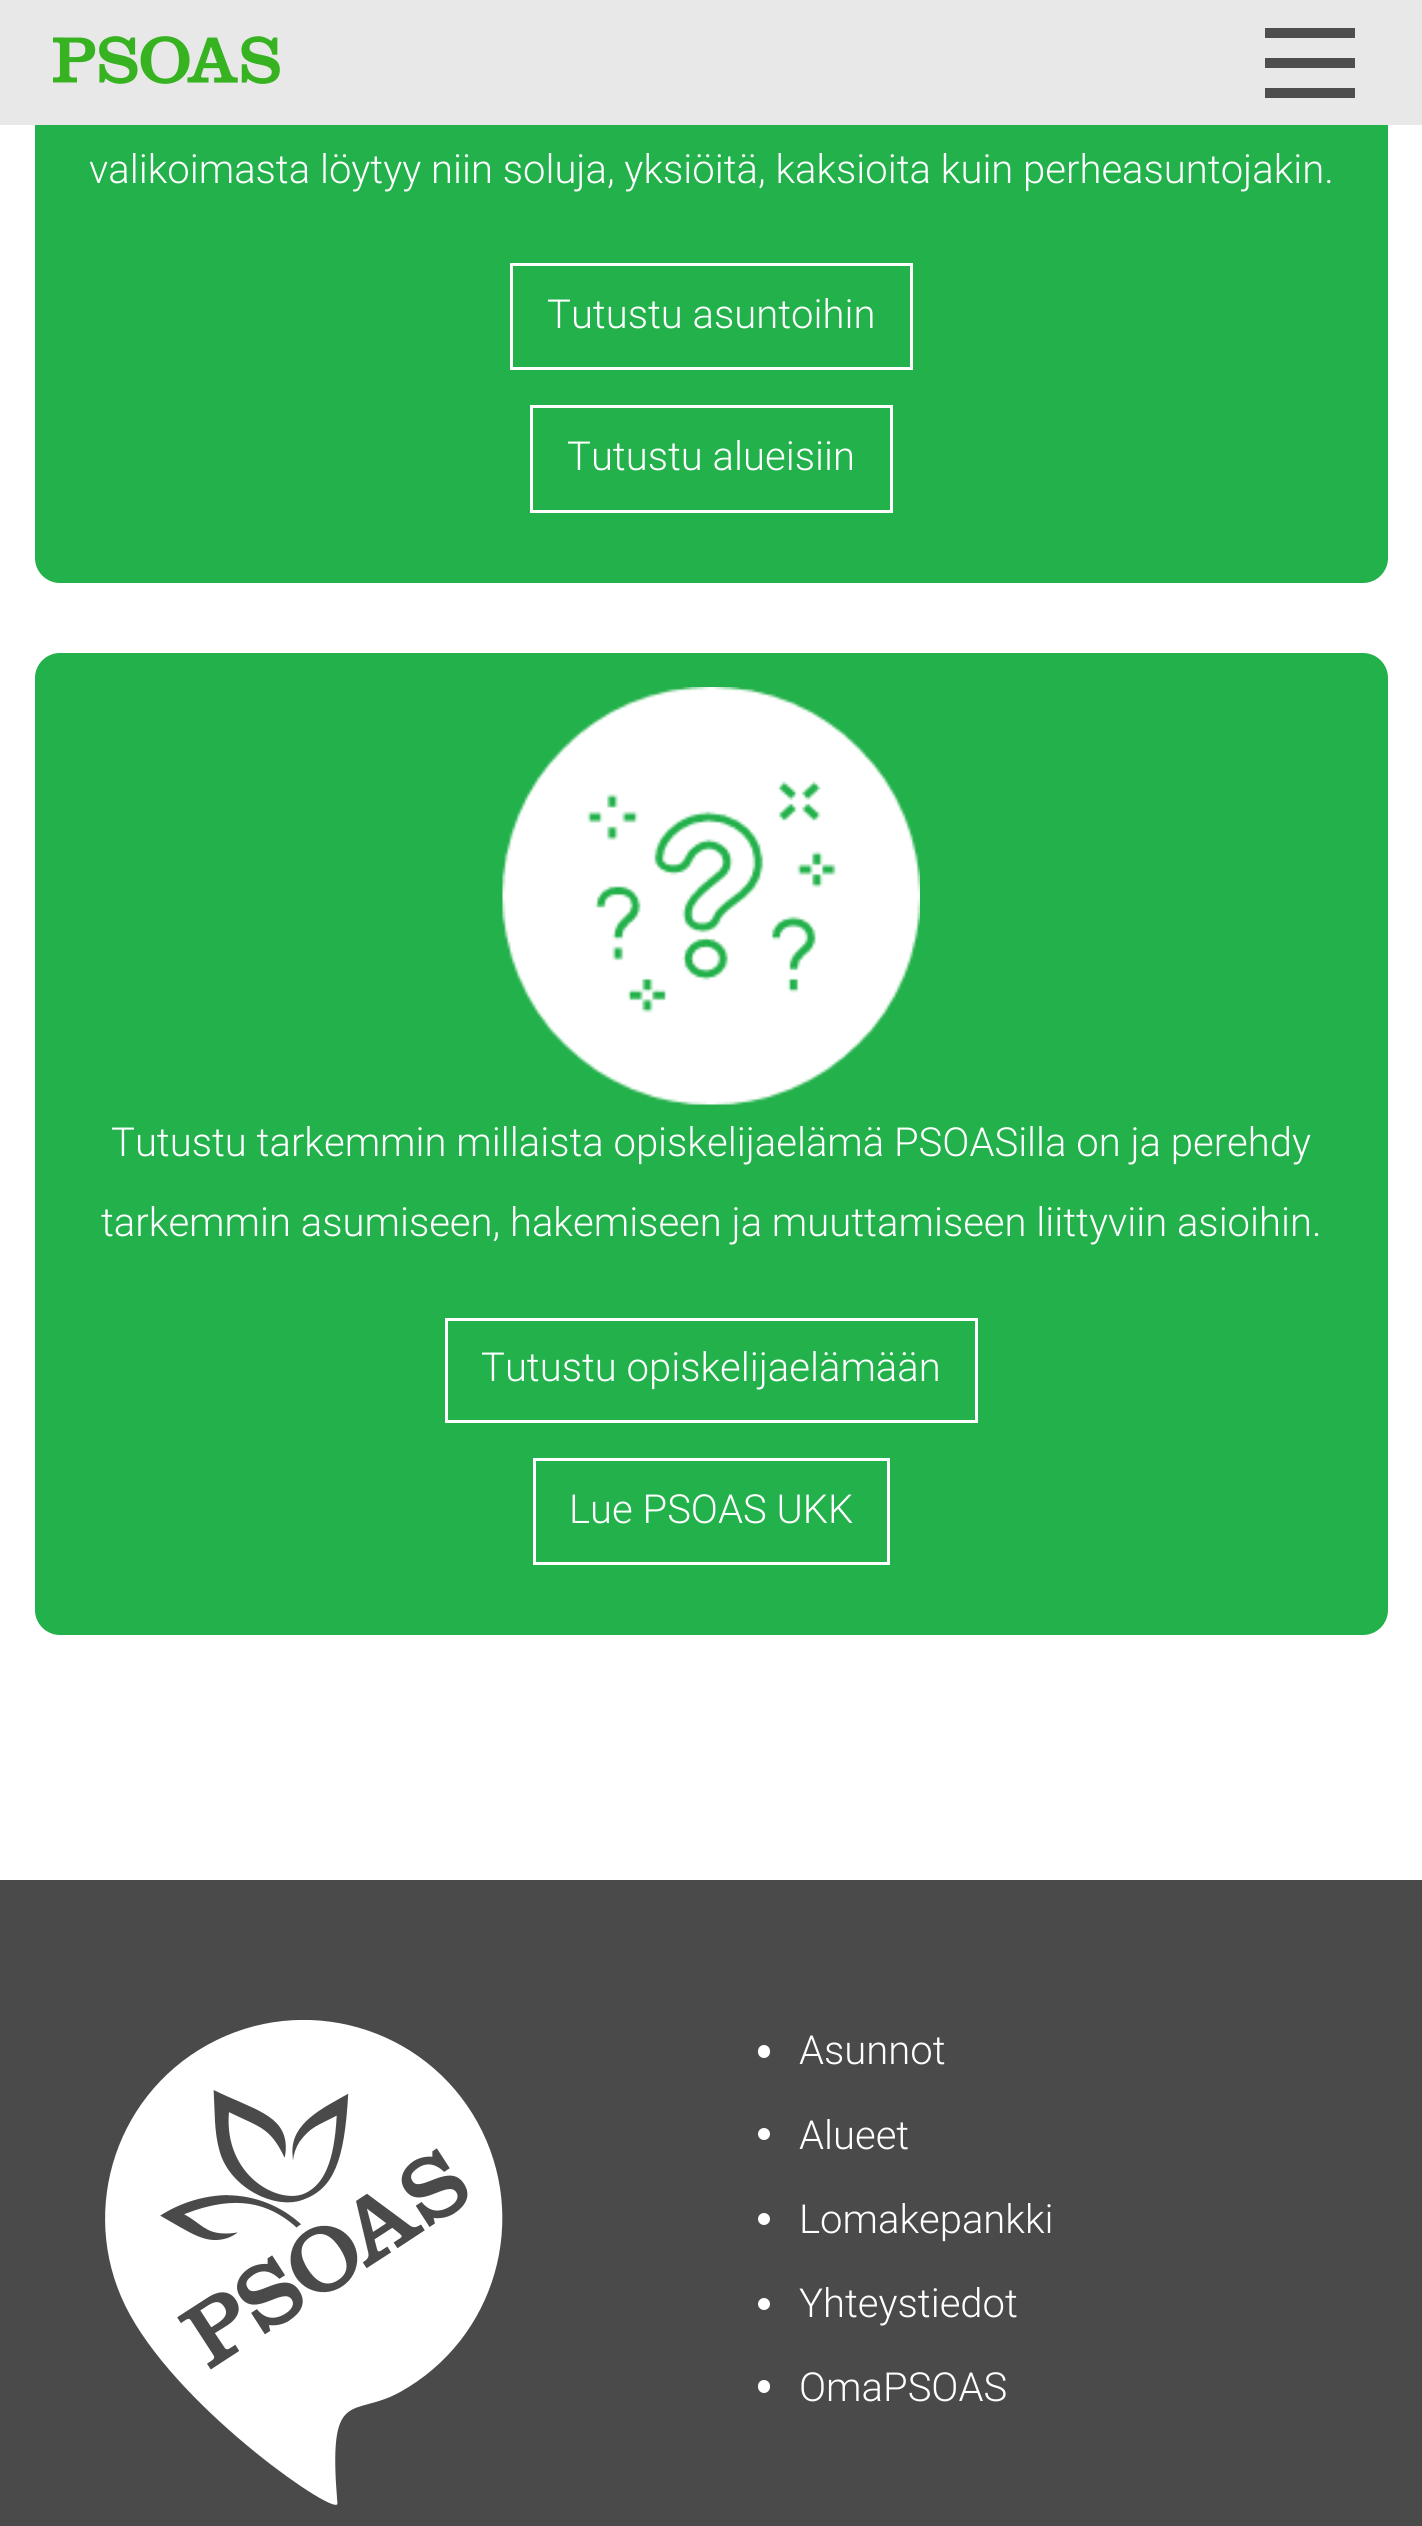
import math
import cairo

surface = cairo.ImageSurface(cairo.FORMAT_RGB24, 1422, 2526)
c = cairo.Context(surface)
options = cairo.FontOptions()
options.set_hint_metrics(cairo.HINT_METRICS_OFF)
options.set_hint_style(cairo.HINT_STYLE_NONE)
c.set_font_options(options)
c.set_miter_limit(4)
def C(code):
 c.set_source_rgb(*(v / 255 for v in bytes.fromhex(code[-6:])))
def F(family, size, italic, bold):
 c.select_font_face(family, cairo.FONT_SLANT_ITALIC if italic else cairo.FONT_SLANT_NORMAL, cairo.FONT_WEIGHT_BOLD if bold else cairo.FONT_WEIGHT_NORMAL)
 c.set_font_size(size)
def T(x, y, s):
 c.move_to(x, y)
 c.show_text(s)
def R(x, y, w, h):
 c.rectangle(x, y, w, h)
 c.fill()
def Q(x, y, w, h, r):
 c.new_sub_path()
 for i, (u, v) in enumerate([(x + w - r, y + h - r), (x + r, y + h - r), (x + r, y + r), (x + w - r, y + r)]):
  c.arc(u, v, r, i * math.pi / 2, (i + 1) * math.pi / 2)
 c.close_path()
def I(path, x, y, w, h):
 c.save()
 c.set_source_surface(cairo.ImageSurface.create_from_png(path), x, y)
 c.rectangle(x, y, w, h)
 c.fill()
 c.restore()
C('ffffff')
c.paint()
C('23b14b')
Q(35,-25,1353,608,25)
c.fill()
C('e8e8e8')
R(0,0,1422,125)
I('1.png',53,36,227,48)
C('4e4e4e')
c.new_path()
c.move_to(1265,58)
c.line_to(1355,58)
c.line_to(1355,68)
c.line_to(1265,68)
c.close_path()
c.move_to(1265,28)
c.line_to(1355,28)
c.line_to(1355,38)
c.line_to(1265,38)
c.close_path()
c.move_to(1265,88)
c.line_to(1355,88)
c.line_to(1355,98)
c.line_to(1265,98)
c.close_path()
c.fill()
F('Roboto Light',40,0,0)
C('ffffff')
T(89,183,'valikoimasta löytyy niin soluja, yksiöitä, kaksioita kuin perheasuntojakin.')
c.rectangle(511.5,264.5,400,104)
c.set_line_width(3)
c.stroke()
T(547,328,'Tutustu asuntoihin')
c.rectangle(531.5,406.5,360,105)
c.stroke()
T(567,470,'Tutustu alueisiin')
C('23b14b')
Q(35,653,1353,982,25)
c.fill()
I('2.png',502,687,418,418)
C('ffffff')
T(111,1156,'Tutustu tarkemmin millaista opiskelijaelämä PSOASilla on ja perehdy')
T(101,1236,'tarkemmin asumiseen, hakemiseen ja muuttamiseen liittyviin asioihin.')
c.rectangle(446.5,1319.5,530,102)
c.stroke()
T(481,1381,'Tutustu opiskelijaelämään')
c.rectangle(534.5,1459.5,354,104)
c.stroke()
T(569,1523,'Lue PSOAS UKK')
C('4a4a4a')
R(0,1880,1422,646)
I('3.png',105,2020,398,485)
C('ffffff')
Q(758,2045,12,13,6)
c.fill()
T(799,2064,'Asunnot')
c.new_path()
c.arc(764,2134,6,0,2 * math.pi)
c.fill()
T(799,2149,'Alueet')
c.new_path()
c.arc(764,2219,6,0,2 * math.pi)
c.fill()
T(799,2233,'Lomakepankki')
c.new_path()
c.arc(764,2304,6,0,2 * math.pi)
c.fill()
T(799,2317,'Yhteystiedot')
Q(758,2380,12,13,6)
c.fill()
T(799,2401,'OmaPSOAS')
surface.write_to_png('o.png')
